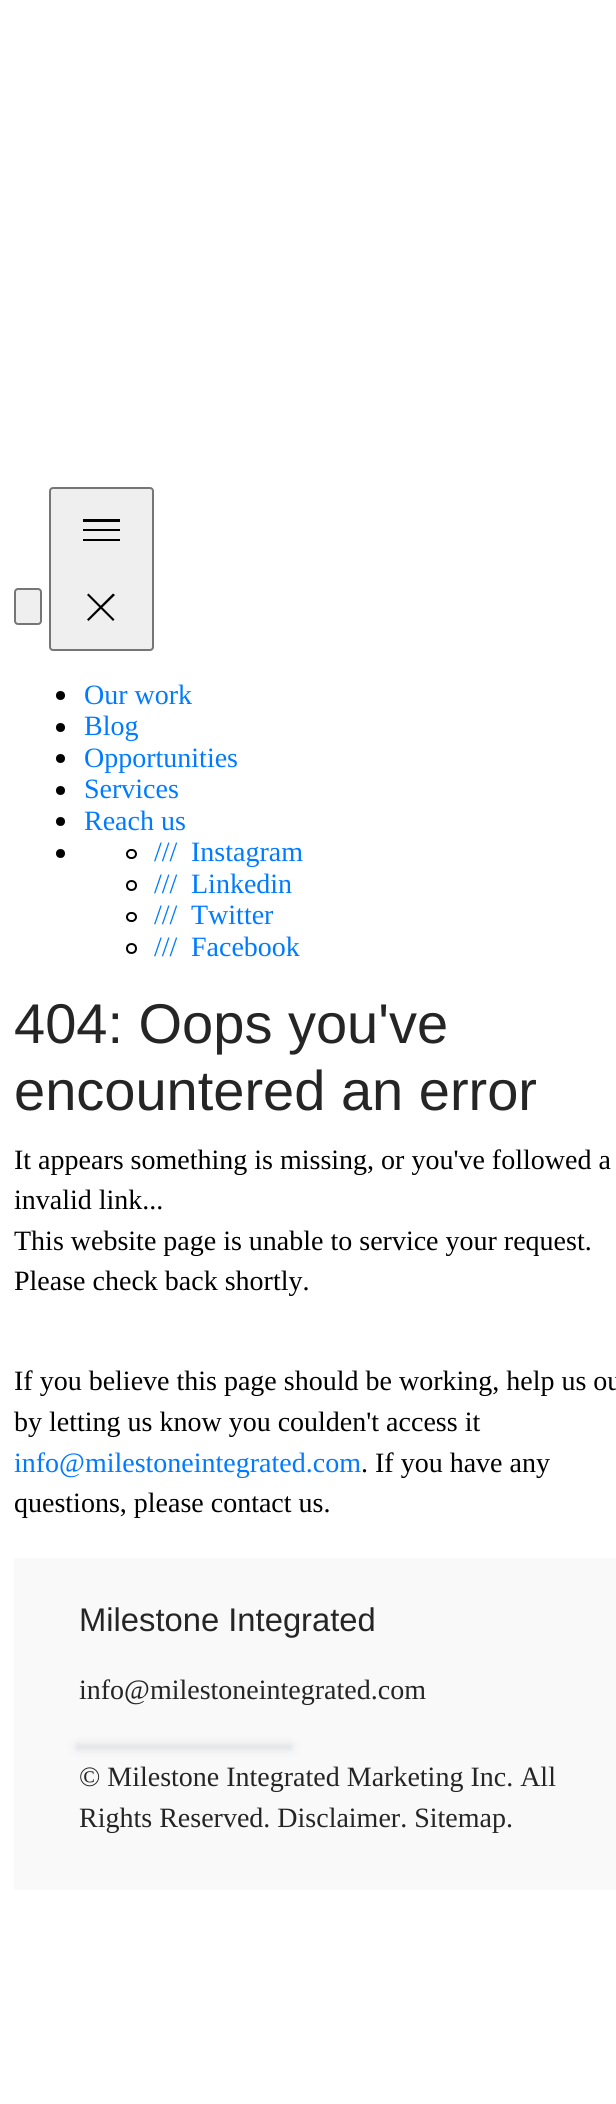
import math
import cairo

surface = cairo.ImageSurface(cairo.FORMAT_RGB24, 616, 2104)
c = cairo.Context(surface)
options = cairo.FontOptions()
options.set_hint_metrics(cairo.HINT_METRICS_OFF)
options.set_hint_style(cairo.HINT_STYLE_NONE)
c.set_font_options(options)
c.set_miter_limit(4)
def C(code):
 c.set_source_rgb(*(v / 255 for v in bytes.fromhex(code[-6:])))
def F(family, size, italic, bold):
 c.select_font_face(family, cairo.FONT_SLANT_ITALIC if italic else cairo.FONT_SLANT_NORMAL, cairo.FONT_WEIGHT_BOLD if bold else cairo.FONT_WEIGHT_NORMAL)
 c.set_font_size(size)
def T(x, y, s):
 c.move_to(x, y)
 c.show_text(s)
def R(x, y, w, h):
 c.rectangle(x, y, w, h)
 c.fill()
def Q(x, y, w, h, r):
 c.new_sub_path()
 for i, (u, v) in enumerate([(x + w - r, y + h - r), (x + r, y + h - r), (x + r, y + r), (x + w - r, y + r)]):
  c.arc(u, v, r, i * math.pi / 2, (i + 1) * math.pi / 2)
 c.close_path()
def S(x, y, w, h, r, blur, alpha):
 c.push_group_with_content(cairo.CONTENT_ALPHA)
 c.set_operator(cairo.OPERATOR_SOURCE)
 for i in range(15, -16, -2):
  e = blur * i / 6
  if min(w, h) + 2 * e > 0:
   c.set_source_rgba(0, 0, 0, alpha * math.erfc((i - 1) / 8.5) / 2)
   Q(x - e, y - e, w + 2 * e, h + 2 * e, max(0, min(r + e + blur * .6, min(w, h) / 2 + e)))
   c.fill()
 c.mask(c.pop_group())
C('ffffff')
c.paint()
C('efefef')
Q(15,589,26,35,3)
c.fill_preserve()
C('767676')
c.stroke()
C('efefef')
Q(50,488,103,162,3)
c.fill_preserve()
C('767676')
c.stroke()
C('000000')
R(83,519,37,3)
R(83,529,37,2)
R(83,539,37,2)
c.new_path()
c.move_to(87,595)
c.line_to(88.5,593.5)
c.line_to(114.5,619.5)
c.line_to(113,621)
c.close_path()
c.fill()
c.new_path()
c.move_to(87,619.5)
c.line_to(113,593.5)
c.line_to(115,595)
c.line_to(88.5,621)
c.close_path()
c.fill()
c.arc(60.5,695.5,4.5,0,2 * math.pi)
c.fill()
F('Liberation Serif',28,0,0)
C('007bff')
T(84,704,'Our work')
C('000000')
c.new_path()
c.arc(60.5,727.5,4.5,0,2 * math.pi)
c.fill()
C('007bff')
T(84,735,'Blog')
C('000000')
c.new_path()
c.arc(60.5,758.5,4.5,0,2 * math.pi)
c.fill()
C('007bff')
T(84,767,'Opportunities')
C('000000')
c.new_path()
c.arc(60.5,790.5,4.5,0,2 * math.pi)
c.fill()
C('007bff')
T(84,798,'Services')
C('000000')
c.new_path()
c.arc(60.5,821.5,4.5,0,2 * math.pi)
c.fill()
C('007bff')
T(84,830,'Reach us')
C('000000')
c.new_path()
c.arc(60.5,853.5,4.5,0,2 * math.pi)
c.fill()
Q(127,850,9,8,4)
c.stroke()
C('007bff')
T(154,861,'///')
T(191,861,'Instagram')
c.new_path()
c.arc(131.5,885.5,4.5,0,2 * math.pi)
C('000000')
c.stroke()
C('007bff')
T(154,893,'///')
T(191,893,'Linkedin')
Q(127,913,9,8,4)
C('000000')
c.stroke()
C('007bff')
T(154,924,'///')
T(191,924,'Twitter')
c.new_path()
c.arc(131.5,948.5,4.5,0,2 * math.pi)
C('000000')
c.stroke()
C('007bff')
T(154,956,'///')
T(191,956,'Facebook')
F('Liberation Sans',56,0,0)
C('252525')
T(14,1043,'404: Oops you\'ve')
T(14,1110,'encountered an error')
F('Liberation Serif',28,0,0)
C('000000')
T(14,1169,'It appears something is missing, or you\'ve followed a')
T(14,1209,'invalid link...')
T(14,1250,'This website page is unable to service your request.')
T(14,1290,'Please check back shortly.')
T(14,1390,'If you believe this page should be working, help us ou')
T(14,1431,'by letting us know you coulden\'t access it')
C('007bff')
T(14,1472,'info@milestoneintegrated.com')
C('000000')
T(361,1472,'. If you have any')
T(14,1512,'questions, please contact us.')
C('f9f9f9')
R(14,1558,602,332)
F('Liberation Sans',32.75,0,0)
C('252525')
T(79,1631,'Milestone Integrated')
F('Liberation Serif',28,0,0)
T(79,1699,'info@milestoneintegrated.com')
C('dadce0')
S(77,1745,214,4,0,4.5,1)
C('252525')
T(79,1786,'© Milestone Integrated Marketing Inc. All')
T(79,1827,'Rights Reserved. Disclaimer. Sitemap.')
surface.write_to_png('o.png')
